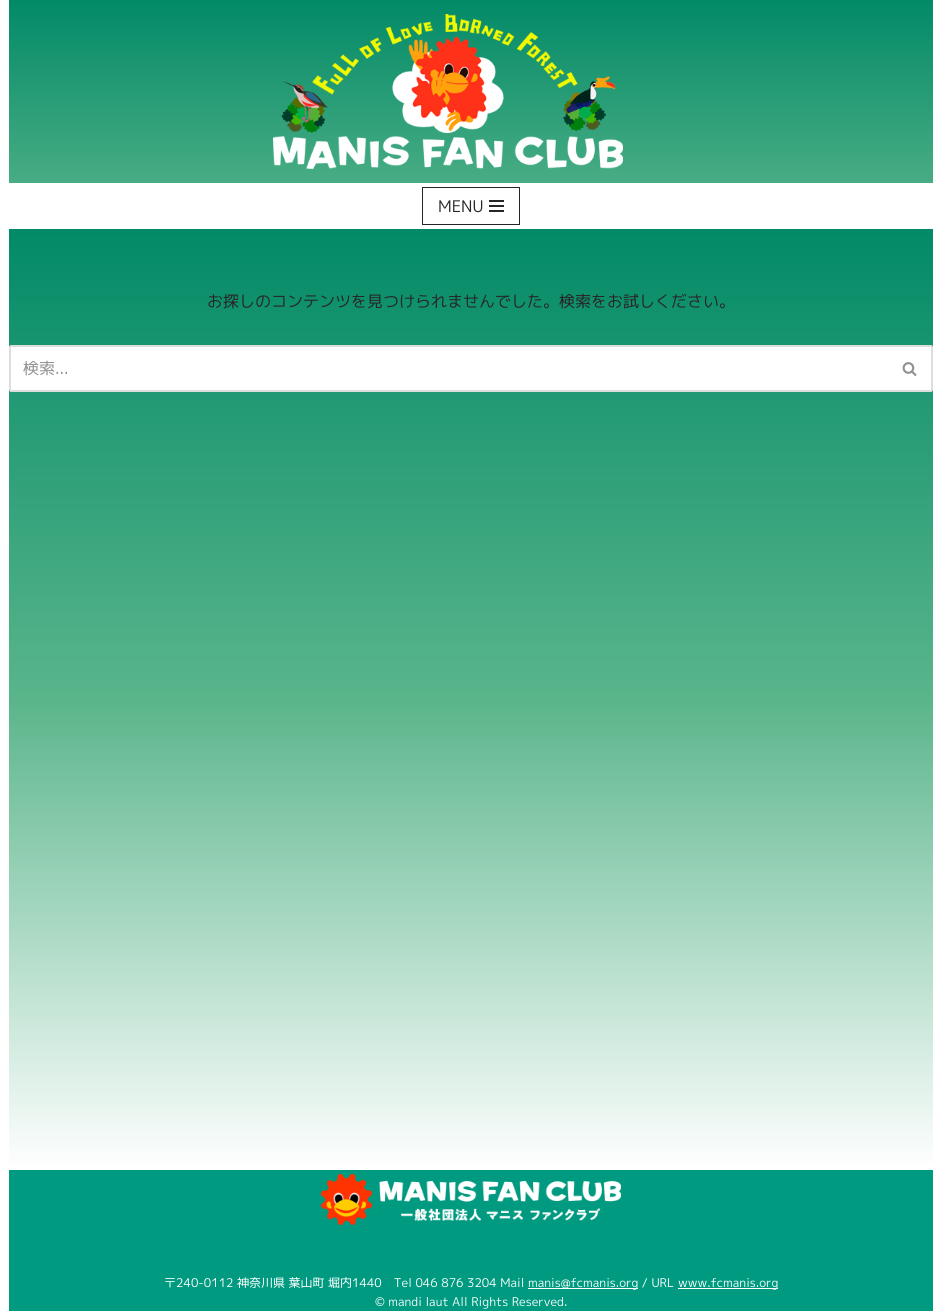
import math
import cairo

surface = cairo.ImageSurface(cairo.FORMAT_RGB24, 942, 1311)
c = cairo.Context(surface)
options = cairo.FontOptions()
options.set_hint_metrics(cairo.HINT_METRICS_OFF)
options.set_hint_style(cairo.HINT_STYLE_NONE)
c.set_font_options(options)
c.set_miter_limit(4)
def C(code):
 c.set_source_rgb(*(v / 255 for v in bytes.fromhex(code[-6:])))
def F(family, size, italic, bold):
 c.select_font_face(family, cairo.FONT_SLANT_ITALIC if italic else cairo.FONT_SLANT_NORMAL, cairo.FONT_WEIGHT_BOLD if bold else cairo.FONT_WEIGHT_NORMAL)
 c.set_font_size(size)
def T(x, y, s):
 c.move_to(x, y)
 c.show_text(s)
def R(x, y, w, h):
 c.rectangle(x, y, w, h)
 c.fill()
def I(path, x, y, w, h):
 c.save()
 c.set_source_surface(cairo.ImageSurface.create_from_png(path), x, y)
 c.rectangle(x, y, w, h)
 c.fill()
 c.restore()
C('ffffff')
c.paint()
gradient = cairo.LinearGradient(471,229,471,0)
gradient.add_color_stop_rgba(0,0.353,0.71,0.545,1)
gradient.add_color_stop_rgba(1,0.008,0.541,0.404,1)
c.set_source(gradient)
R(9,0,924,183)
I('1.png',273,14,350,155)
c.rectangle(422.5,187.5,97,37)
C('272626')
c.set_line_width(1)
c.stroke()
F('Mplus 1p',16,0,0)
T(438,212,'MENU')
R(489,200,15,2)
R(489,205,15,2)
R(489,210,15,2)
gradient = cairo.LinearGradient(471,1170,471,229)
gradient.add_color_stop_rgba(0,1,1,1,1)
gradient.add_color_stop_rgba(.5,0.353,0.71,0.545,1)
gradient.add_color_stop_rgba(1,0.008,0.541,0.404,1)
c.set_source(gradient)
R(9,229,924,934)
C('272626')
T(207,307,'お探しのコンテンツを見つけられませんでした。検索をお試しください。')
C('ffffff')
c.new_path()
c.move_to(12,345)
c.line_to(888,345)
c.line_to(888,392)
c.line_to(12,392)
c.curve_to(10.5,392,9,390.5,9,389)
c.line_to(9,348)
c.curve_to(9,346.5,10.5,345,12,345)
c.close_path()
c.fill()
C('dddddd')
c.set_fill_rule(cairo.FILL_RULE_EVEN_ODD)
c.new_path()
c.move_to(12,345)
c.line_to(888,345)
c.line_to(888,392)
c.line_to(12,392)
c.curve_to(10,392,9,391,9,389)
c.line_to(9,348)
c.curve_to(9,346,10,345,12,345)
c.close_path()
c.move_to(12,347)
c.line_to(888,347)
c.line_to(888,390)
c.line_to(12,390)
c.curve_to(11,390,11,390,11,389)
c.line_to(11,348)
c.curve_to(11,347,11,347,12,347)
c.close_path()
c.fill()
C('939393')
T(23,374,'検索...')
C('ffffff')
c.new_path()
c.move_to(888,345)
c.line_to(930,345)
c.curve_to(931.5,345,933,346.5,933,348)
c.line_to(933,389)
c.curve_to(933,390.5,931.5,392,930,392)
c.line_to(888,392)
c.close_path()
c.fill()
C('dddddd')
c.new_path()
c.move_to(888,345)
c.line_to(930,345)
c.curve_to(932,345,933,346,933,348)
c.line_to(933,389)
c.curve_to(933,391,932,392,930,392)
c.line_to(888,392)
c.close_path()
c.move_to(888,347)
c.line_to(930,347)
c.curve_to(931,347,931,347,931,348)
c.line_to(931,389)
c.curve_to(931,390,931,390,930,390)
c.line_to(888,390)
c.close_path()
c.fill()
I('2.png',902,362,15,14)
C('009a80')
R(9,1170,924,141)
I('3.png',321,1174,300,51)
F('Mplus 1p',12,0,0)
C('ffffff')
T(164,1287,'〒240-0112 神奈川県 葉山町 堀内1440　Tel 046 876 3204 Mail')
R(528,1288,110,1)
T(528,1287,'manis@fcmanis.org / URL')
R(678,1288,100,1)
T(678,1287,'www.fcmanis.org')
T(375,1306,'© mandi laut All Rights Reserved.')
surface.write_to_png('o.png')
